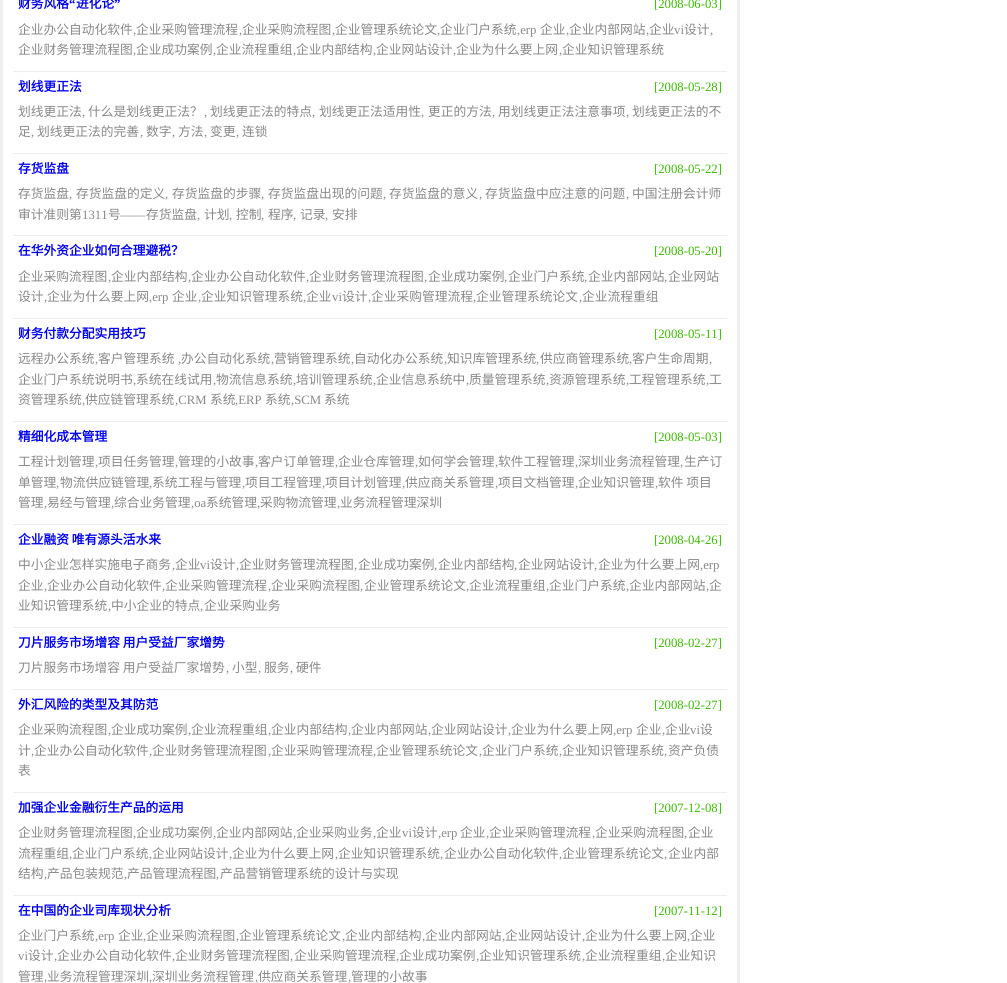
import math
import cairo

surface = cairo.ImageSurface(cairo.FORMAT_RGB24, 1007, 983)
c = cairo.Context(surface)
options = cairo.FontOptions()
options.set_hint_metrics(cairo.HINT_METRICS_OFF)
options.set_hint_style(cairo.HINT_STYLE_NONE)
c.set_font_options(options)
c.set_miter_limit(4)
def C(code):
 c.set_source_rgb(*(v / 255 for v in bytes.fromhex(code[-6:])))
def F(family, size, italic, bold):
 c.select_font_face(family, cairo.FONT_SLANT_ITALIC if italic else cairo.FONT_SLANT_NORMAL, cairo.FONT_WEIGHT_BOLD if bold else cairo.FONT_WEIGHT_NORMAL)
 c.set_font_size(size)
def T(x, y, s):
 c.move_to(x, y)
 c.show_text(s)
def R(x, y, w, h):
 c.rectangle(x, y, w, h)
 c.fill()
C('ffffff')
c.paint()
C('eeeeee')
R(737,0,3,983)
R(0,0,3,983)
R(13,71,714,1)
F('Noto Sans CJK SC',12.75,0,1)
C('0000ee')
T(18,8,'财务风格')
F('Liberation Serif',12.75,0,1)
T(69,8,'“')
F('Noto Sans CJK SC',12.75,0,1)
T(76,8,'进化论')
F('Liberation Serif',12.75,0,1)
T(114,8,'”')
F('Liberation Serif',12.75,0,0)
C('3bbc00')
T(654,8,'[2008-06-03]')
F('Noto Sans CJK SC',12.75,0,0)
C('888888')
T(18,34,'企业办公自动化软件')
F('Liberation Serif',12.75,0,0)
T(133,34,',')
F('Noto Sans CJK SC',12.75,0,0)
T(136,34,'企业采购管理流程')
F('Liberation Serif',12.75,0,0)
T(239,34,',')
F('Noto Sans CJK SC',12.75,0,0)
T(242,34,'企业采购流程图')
F('Liberation Serif',12.75,0,0)
T(332,34,',')
F('Noto Sans CJK SC',12.75,0,0)
T(335,34,'企业管理系统论文')
F('Liberation Serif',12.75,0,0)
T(437,34,',')
F('Noto Sans CJK SC',12.75,0,0)
T(440,34,'企业门户系统')
F('Liberation Serif',12.75,0,0)
T(517,34,',erp')
F('Noto Sans CJK SC',12.75,0,0)
T(540,34,'企业')
F('Liberation Serif',12.75,0,0)
T(566,34,',')
F('Noto Sans CJK SC',12.75,0,0)
T(569,34,'企业内部网站')
F('Liberation Serif',12.75,0,0)
T(646,34,',')
F('Noto Sans CJK SC',12.75,0,0)
T(649,34,'企业')
F('Liberation Serif',12.75,0,0)
T(674,34,'vi')
F('Noto Sans CJK SC',12.75,0,0)
T(684,34,'设计')
F('Liberation Serif',12.75,0,0)
T(710,34,',')
F('Noto Sans CJK SC',12.75,0,0)
T(18,54,'企业财务管理流程图')
F('Liberation Serif',12.75,0,0)
T(133,54,',')
F('Noto Sans CJK SC',12.75,0,0)
T(136,54,'企业成功案例')
F('Liberation Serif',12.75,0,0)
T(213,54,',')
F('Noto Sans CJK SC',12.75,0,0)
T(216,54,'企业流程重组')
F('Liberation Serif',12.75,0,0)
T(293,54,',')
F('Noto Sans CJK SC',12.75,0,0)
T(296,54,'企业内部结构')
F('Liberation Serif',12.75,0,0)
T(373,54,',')
F('Noto Sans CJK SC',12.75,0,0)
T(376,54,'企业网站设计')
F('Liberation Serif',12.75,0,0)
T(453,54,',')
F('Noto Sans CJK SC',12.75,0,0)
T(456,54,'企业为什么要上网')
F('Liberation Serif',12.75,0,0)
T(559,54,',')
F('Noto Sans CJK SC',12.75,0,0)
T(562,54,'企业知识管理系统')
C('eeeeee')
R(13,153,714,1)
F('Noto Sans CJK SC',12.75,0,1)
C('0000ee')
T(18,91,'划线更正法')
F('Liberation Serif',12.75,0,0)
C('3bbc00')
T(654,91,'[2008-05-28]')
F('Noto Sans CJK SC',12.75,0,0)
C('888888')
T(18,116,'划线更正法')
F('Liberation Serif',12.75,0,0)
T(82,116,',')
F('Noto Sans CJK SC',12.75,0,0)
T(88,116,'什么是划线更正法？')
F('Liberation Serif',12.75,0,0)
T(204,116,',')
F('Noto Sans CJK SC',12.75,0,0)
T(210,116,'划线更正法的特点')
F('Liberation Serif',12.75,0,0)
T(312,116,',')
F('Noto Sans CJK SC',12.75,0,0)
T(319,116,'划线更正法适用性')
F('Liberation Serif',12.75,0,0)
T(421,116,',')
F('Noto Sans CJK SC',12.75,0,0)
T(428,116,'更正的方法')
F('Liberation Serif',12.75,0,0)
T(492,116,',')
F('Noto Sans CJK SC',12.75,0,0)
T(498,116,'用划线更正法注意事项')
F('Liberation Serif',12.75,0,0)
T(626,116,',')
F('Noto Sans CJK SC',12.75,0,0)
T(632,116,'划线更正法的不')
T(18,136,'足')
F('Liberation Serif',12.75,0,0)
T(31,136,',')
F('Noto Sans CJK SC',12.75,0,0)
T(37,136,'划线更正法的完善')
F('Liberation Serif',12.75,0,0)
T(140,136,',')
F('Noto Sans CJK SC',12.75,0,0)
T(146,136,'数字')
F('Liberation Serif',12.75,0,0)
T(172,136,',')
F('Noto Sans CJK SC',12.75,0,0)
T(178,136,'方法')
F('Liberation Serif',12.75,0,0)
T(204,136,',')
F('Noto Sans CJK SC',12.75,0,0)
T(210,136,'变更')
F('Liberation Serif',12.75,0,0)
T(236,136,',')
F('Noto Sans CJK SC',12.75,0,0)
T(242,136,'连锁')
C('eeeeee')
R(13,235,714,1)
F('Noto Sans CJK SC',12.75,0,1)
C('0000ee')
T(18,173,'存货监盘')
F('Liberation Serif',12.75,0,0)
C('3bbc00')
T(654,173,'[2008-05-22]')
F('Noto Sans CJK SC',12.75,0,0)
C('888888')
T(18,198,'存货监盘')
F('Liberation Serif',12.75,0,0)
T(69,198,',')
F('Noto Sans CJK SC',12.75,0,0)
T(76,198,'存货监盘的定义')
F('Liberation Serif',12.75,0,0)
T(165,198,',')
F('Noto Sans CJK SC',12.75,0,0)
T(172,198,'存货监盘的步骤')
F('Liberation Serif',12.75,0,0)
T(261,198,',')
F('Noto Sans CJK SC',12.75,0,0)
T(268,198,'存货监盘出现的问题')
F('Liberation Serif',12.75,0,0)
T(383,198,',')
F('Noto Sans CJK SC',12.75,0,0)
T(389,198,'存货监盘的意义')
F('Liberation Serif',12.75,0,0)
T(479,198,',')
F('Noto Sans CJK SC',12.75,0,0)
T(485,198,'存货监盘中应注意的问题')
F('Liberation Serif',12.75,0,0)
T(626,198,',')
F('Noto Sans CJK SC',12.75,0,0)
T(632,198,'中国注册会计师')
T(18,219,'审计准则第')
F('Liberation Serif',12.75,0,0)
T(82,219,'1311')
F('Noto Sans CJK SC',12.75,0,0)
T(108,219,'号')
F('Liberation Serif',12.75,0,0)
T(120,219,'——')
F('Noto Sans CJK SC',12.75,0,0)
T(146,219,'存货监盘')
T(204,219,'计划')
T(236,219,'控制')
T(268,219,'程序')
T(300,219,'记录')
T(332,219,'安排')
F('Liberation Serif',12.75,0,0)
T(197,219,',')
T(229,219,',')
T(261,219,',')
T(293,219,',')
T(325,219,',')
C('eeeeee')
R(13,318,714,1)
F('Noto Sans CJK SC',12.75,0,1)
C('0000ee')
T(18,255,'在华外资企业如何合理避税？')
F('Liberation Serif',12.75,0,0)
C('3bbc00')
T(654,255,'[2008-05-20]')
F('Noto Sans CJK SC',12.75,0,0)
C('888888')
T(18,281,'企业采购流程图')
F('Liberation Serif',12.75,0,0)
T(108,281,',')
F('Noto Sans CJK SC',12.75,0,0)
T(111,281,'企业内部结构')
F('Liberation Serif',12.75,0,0)
T(188,281,',')
F('Noto Sans CJK SC',12.75,0,0)
T(191,281,'企业办公自动化软件')
F('Liberation Serif',12.75,0,0)
T(306,281,',')
F('Noto Sans CJK SC',12.75,0,0)
T(309,281,'企业财务管理流程图')
F('Liberation Serif',12.75,0,0)
T(424,281,',')
F('Noto Sans CJK SC',12.75,0,0)
T(428,281,'企业成功案例')
F('Liberation Serif',12.75,0,0)
T(504,281,',')
F('Noto Sans CJK SC',12.75,0,0)
T(508,281,'企业门户系统')
F('Liberation Serif',12.75,0,0)
T(584,281,',')
F('Noto Sans CJK SC',12.75,0,0)
T(588,281,'企业内部网站')
F('Liberation Serif',12.75,0,0)
T(664,281,',')
F('Noto Sans CJK SC',12.75,0,0)
T(668,281,'企业网站')
T(18,301,'设计')
F('Liberation Serif',12.75,0,0)
T(44,301,',')
F('Noto Sans CJK SC',12.75,0,0)
T(47,301,'企业为什么要上网')
F('Liberation Serif',12.75,0,0)
T(149,301,',erp')
F('Noto Sans CJK SC',12.75,0,0)
T(172,301,'企业')
F('Liberation Serif',12.75,0,0)
T(198,301,',')
F('Noto Sans CJK SC',12.75,0,0)
T(201,301,'企业知识管理系统')
F('Liberation Serif',12.75,0,0)
T(303,301,',')
F('Noto Sans CJK SC',12.75,0,0)
T(306,301,'企业')
F('Liberation Serif',12.75,0,0)
T(332,301,'vi')
F('Noto Sans CJK SC',12.75,0,0)
T(342,301,'设计')
F('Liberation Serif',12.75,0,0)
T(368,301,',')
F('Noto Sans CJK SC',12.75,0,0)
T(371,301,'企业采购管理流程')
F('Liberation Serif',12.75,0,0)
T(473,301,',')
F('Noto Sans CJK SC',12.75,0,0)
T(476,301,'企业管理系统论文')
F('Liberation Serif',12.75,0,0)
T(579,301,',')
F('Noto Sans CJK SC',12.75,0,0)
T(582,301,'企业流程重组')
C('eeeeee')
R(13,421,714,1)
F('Noto Sans CJK SC',12.75,0,1)
C('0000ee')
T(18,338,'财务付款分配实用技巧')
F('Liberation Serif',12.75,0,0)
C('3bbc00')
T(654,338,'[2008-05-11]')
F('Noto Sans CJK SC',12.75,0,0)
C('888888')
T(18,363,'远程办公系统')
F('Liberation Serif',12.75,0,0)
T(95,363,',')
F('Noto Sans CJK SC',12.75,0,0)
T(98,363,'客户管理系统')
F('Liberation Serif',12.75,0,0)
T(178,363,',')
F('Noto Sans CJK SC',12.75,0,0)
T(181,363,'办公自动化系统')
F('Liberation Serif',12.75,0,0)
T(271,363,',')
F('Noto Sans CJK SC',12.75,0,0)
T(274,363,'营销管理系统')
F('Liberation Serif',12.75,0,0)
T(351,363,',')
F('Noto Sans CJK SC',12.75,0,0)
T(354,363,'自动化办公系统')
F('Liberation Serif',12.75,0,0)
T(444,363,',')
F('Noto Sans CJK SC',12.75,0,0)
T(447,363,'知识库管理系统')
F('Liberation Serif',12.75,0,0)
T(536,363,',')
F('Noto Sans CJK SC',12.75,0,0)
T(540,363,'供应商管理系统')
F('Liberation Serif',12.75,0,0)
T(629,363,',')
F('Noto Sans CJK SC',12.75,0,0)
T(632,363,'客户生命周期')
F('Liberation Serif',12.75,0,0)
T(709,363,',')
F('Noto Sans CJK SC',12.75,0,0)
T(18,384,'企业门户系统说明书')
F('Liberation Serif',12.75,0,0)
T(133,384,',')
F('Noto Sans CJK SC',12.75,0,0)
T(136,384,'系统在线试用')
F('Liberation Serif',12.75,0,0)
T(213,384,',')
F('Noto Sans CJK SC',12.75,0,0)
T(216,384,'物流信息系统')
F('Liberation Serif',12.75,0,0)
T(293,384,',')
F('Noto Sans CJK SC',12.75,0,0)
T(296,384,'培训管理系统')
F('Liberation Serif',12.75,0,0)
T(373,384,',')
F('Noto Sans CJK SC',12.75,0,0)
T(376,384,'企业信息系统中')
F('Liberation Serif',12.75,0,0)
T(466,384,',')
F('Noto Sans CJK SC',12.75,0,0)
T(469,384,'质量管理系统')
F('Liberation Serif',12.75,0,0)
T(546,384,',')
F('Noto Sans CJK SC',12.75,0,0)
T(549,384,'资源管理系统')
F('Liberation Serif',12.75,0,0)
T(626,384,',')
F('Noto Sans CJK SC',12.75,0,0)
T(629,384,'工程管理系统')
F('Liberation Serif',12.75,0,0)
T(706,384,',')
F('Noto Sans CJK SC',12.75,0,0)
T(709,384,'工')
T(18,404,'资管理系统')
F('Liberation Serif',12.75,0,0)
T(82,404,',')
F('Noto Sans CJK SC',12.75,0,0)
T(85,404,'供应链管理系统')
F('Liberation Serif',12.75,0,0)
T(175,404,',CRM')
F('Noto Sans CJK SC',12.75,0,0)
T(210,404,'系统')
F('Liberation Serif',12.75,0,0)
T(235,404,',ERP')
F('Noto Sans CJK SC',12.75,0,0)
T(265,404,'系统')
F('Liberation Serif',12.75,0,0)
T(291,404,',SCM')
F('Noto Sans CJK SC',12.75,0,0)
T(324,404,'系统')
C('eeeeee')
R(13,524,714,1)
F('Noto Sans CJK SC',12.75,0,1)
C('0000ee')
T(18,441,'精细化成本管理')
F('Liberation Serif',12.75,0,0)
C('3bbc00')
T(654,441,'[2008-05-03]')
F('Noto Sans CJK SC',12.75,0,0)
C('888888')
T(18,466,'工程计划管理')
F('Liberation Serif',12.75,0,0)
T(95,466,',')
F('Noto Sans CJK SC',12.75,0,0)
T(98,466,'项目任务管理')
F('Liberation Serif',12.75,0,0)
T(175,466,',')
F('Noto Sans CJK SC',12.75,0,0)
T(178,466,'管理的小故事')
F('Liberation Serif',12.75,0,0)
T(255,466,',')
F('Noto Sans CJK SC',12.75,0,0)
T(258,466,'客户订单管理')
F('Liberation Serif',12.75,0,0)
T(335,466,',')
F('Noto Sans CJK SC',12.75,0,0)
T(338,466,'企业仓库管理')
F('Liberation Serif',12.75,0,0)
T(415,466,',')
F('Noto Sans CJK SC',12.75,0,0)
T(418,466,'如何学会管理')
F('Liberation Serif',12.75,0,0)
T(495,466,',')
F('Noto Sans CJK SC',12.75,0,0)
T(498,466,'软件工程管理')
F('Liberation Serif',12.75,0,0)
T(575,466,',')
F('Noto Sans CJK SC',12.75,0,0)
T(578,466,'深圳业务流程管理')
F('Liberation Serif',12.75,0,0)
T(680,466,',')
F('Noto Sans CJK SC',12.75,0,0)
T(684,466,'生产订')
T(18,487,'单管理')
F('Liberation Serif',12.75,0,0)
T(56,487,',')
F('Noto Sans CJK SC',12.75,0,0)
T(60,487,'物流供应链管理')
F('Liberation Serif',12.75,0,0)
T(149,487,',')
F('Noto Sans CJK SC',12.75,0,0)
T(152,487,'系统工程与管理')
F('Liberation Serif',12.75,0,0)
T(242,487,',')
F('Noto Sans CJK SC',12.75,0,0)
T(245,487,'项目工程管理')
F('Liberation Serif',12.75,0,0)
T(322,487,',')
F('Noto Sans CJK SC',12.75,0,0)
T(325,487,'项目计划管理')
F('Liberation Serif',12.75,0,0)
T(402,487,',')
F('Noto Sans CJK SC',12.75,0,0)
T(405,487,'供应商关系管理')
F('Liberation Serif',12.75,0,0)
T(495,487,',')
F('Noto Sans CJK SC',12.75,0,0)
T(498,487,'项目文档管理')
F('Liberation Serif',12.75,0,0)
T(575,487,',')
F('Noto Sans CJK SC',12.75,0,0)
T(578,487,'企业知识管理')
F('Liberation Serif',12.75,0,0)
T(655,487,',')
F('Noto Sans CJK SC',12.75,0,0)
T(658,487,'软件 项目')
T(18,507,'管理')
F('Liberation Serif',12.75,0,0)
T(44,507,',')
F('Noto Sans CJK SC',12.75,0,0)
T(47,507,'易经与管理')
F('Liberation Serif',12.75,0,0)
T(111,507,',')
F('Noto Sans CJK SC',12.75,0,0)
T(114,507,'综合业务管理')
F('Liberation Serif',12.75,0,0)
T(191,507,',oa')
F('Noto Sans CJK SC',12.75,0,0)
T(206,507,'系统管理')
F('Liberation Serif',12.75,0,0)
T(257,507,',')
F('Noto Sans CJK SC',12.75,0,0)
T(260,507,'采购物流管理')
F('Liberation Serif',12.75,0,0)
T(337,507,',')
F('Noto Sans CJK SC',12.75,0,0)
T(340,507,'业务流程管理深圳')
C('eeeeee')
R(13,627,714,1)
F('Noto Sans CJK SC',12.75,0,1)
C('0000ee')
T(18,544,'企业融资 唯有源头活水来')
F('Liberation Serif',12.75,0,0)
C('3bbc00')
T(654,544,'[2008-04-26]')
F('Noto Sans CJK SC',12.75,0,0)
C('888888')
T(18,569,'中小企业怎样实施电子商务')
F('Liberation Serif',12.75,0,0)
T(172,569,',')
F('Noto Sans CJK SC',12.75,0,0)
T(175,569,'企业')
F('Liberation Serif',12.75,0,0)
T(200,569,'vi')
F('Noto Sans CJK SC',12.75,0,0)
T(210,569,'设计')
F('Liberation Serif',12.75,0,0)
T(236,569,',')
F('Noto Sans CJK SC',12.75,0,0)
T(239,569,'企业财务管理流程图')
F('Liberation Serif',12.75,0,0)
T(354,569,',')
F('Noto Sans CJK SC',12.75,0,0)
T(358,569,'企业成功案例')
F('Liberation Serif',12.75,0,0)
T(434,569,',')
F('Noto Sans CJK SC',12.75,0,0)
T(438,569,'企业内部结构')
F('Liberation Serif',12.75,0,0)
T(514,569,',')
F('Noto Sans CJK SC',12.75,0,0)
T(518,569,'企业网站设计')
F('Liberation Serif',12.75,0,0)
T(594,569,',')
F('Noto Sans CJK SC',12.75,0,0)
T(598,569,'企业为什么要上网')
F('Liberation Serif',12.75,0,0)
T(700,569,',erp')
F('Noto Sans CJK SC',12.75,0,0)
T(18,590,'企业')
F('Liberation Serif',12.75,0,0)
T(44,590,',')
F('Noto Sans CJK SC',12.75,0,0)
T(47,590,'企业办公自动化软件')
F('Liberation Serif',12.75,0,0)
T(162,590,',')
F('Noto Sans CJK SC',12.75,0,0)
T(165,590,'企业采购管理流程')
F('Liberation Serif',12.75,0,0)
T(268,590,',')
F('Noto Sans CJK SC',12.75,0,0)
T(271,590,'企业采购流程图')
F('Liberation Serif',12.75,0,0)
T(360,590,',')
F('Noto Sans CJK SC',12.75,0,0)
T(364,590,'企业管理系统论文')
F('Liberation Serif',12.75,0,0)
T(466,590,',')
F('Noto Sans CJK SC',12.75,0,0)
T(469,590,'企业流程重组')
F('Liberation Serif',12.75,0,0)
T(546,590,',')
F('Noto Sans CJK SC',12.75,0,0)
T(549,590,'企业门户系统')
F('Liberation Serif',12.75,0,0)
T(626,590,',')
F('Noto Sans CJK SC',12.75,0,0)
T(629,590,'企业内部网站')
F('Liberation Serif',12.75,0,0)
T(706,590,',')
F('Noto Sans CJK SC',12.75,0,0)
T(709,590,'企')
T(18,610,'业知识管理系统')
F('Liberation Serif',12.75,0,0)
T(108,610,',')
F('Noto Sans CJK SC',12.75,0,0)
T(111,610,'中小企业的特点')
F('Liberation Serif',12.75,0,0)
T(200,610,',')
F('Noto Sans CJK SC',12.75,0,0)
T(204,610,'企业采购业务')
C('eeeeee')
R(13,689,714,1)
F('Noto Sans CJK SC',12.75,0,1)
C('0000ee')
T(18,647,'刀片服务市场增容 用户受益厂家增势')
F('Liberation Serif',12.75,0,0)
C('3bbc00')
T(654,647,'[2008-02-27]')
F('Noto Sans CJK SC',12.75,0,0)
C('888888')
T(18,672,'刀片服务市场增容 用户受益厂家增势')
F('Liberation Serif',12.75,0,0)
T(226,672,',')
F('Noto Sans CJK SC',12.75,0,0)
T(232,672,'小型')
F('Liberation Serif',12.75,0,0)
T(258,672,',')
F('Noto Sans CJK SC',12.75,0,0)
T(264,672,'服务')
F('Liberation Serif',12.75,0,0)
T(290,672,',')
F('Noto Sans CJK SC',12.75,0,0)
T(296,672,'硬件')
C('eeeeee')
R(13,792,714,1)
F('Noto Sans CJK SC',12.75,0,1)
C('0000ee')
T(18,709,'外汇风险的类型及其防范')
F('Liberation Serif',12.75,0,0)
C('3bbc00')
T(654,709,'[2008-02-27]')
F('Noto Sans CJK SC',12.75,0,0)
C('888888')
T(18,734,'企业采购流程图')
F('Liberation Serif',12.75,0,0)
T(108,734,',')
F('Noto Sans CJK SC',12.75,0,0)
T(111,734,'企业成功案例')
F('Liberation Serif',12.75,0,0)
T(188,734,',')
F('Noto Sans CJK SC',12.75,0,0)
T(191,734,'企业流程重组')
F('Liberation Serif',12.75,0,0)
T(268,734,',')
F('Noto Sans CJK SC',12.75,0,0)
T(271,734,'企业内部结构')
F('Liberation Serif',12.75,0,0)
T(348,734,',')
F('Noto Sans CJK SC',12.75,0,0)
T(351,734,'企业内部网站')
F('Liberation Serif',12.75,0,0)
T(428,734,',')
F('Noto Sans CJK SC',12.75,0,0)
T(431,734,'企业网站设计')
F('Liberation Serif',12.75,0,0)
T(508,734,',')
F('Noto Sans CJK SC',12.75,0,0)
T(511,734,'企业为什么要上网')
F('Liberation Serif',12.75,0,0)
T(613,734,',erp')
F('Noto Sans CJK SC',12.75,0,0)
T(636,734,'企业')
F('Liberation Serif',12.75,0,0)
T(662,734,',')
F('Noto Sans CJK SC',12.75,0,0)
T(665,734,'企业')
F('Liberation Serif',12.75,0,0)
T(690,734,'vi')
F('Noto Sans CJK SC',12.75,0,0)
T(700,734,'设')
T(18,755,'计')
F('Liberation Serif',12.75,0,0)
T(31,755,',')
F('Noto Sans CJK SC',12.75,0,0)
T(34,755,'企业办公自动化软件')
F('Liberation Serif',12.75,0,0)
T(149,755,',')
F('Noto Sans CJK SC',12.75,0,0)
T(152,755,'企业财务管理流程图')
F('Liberation Serif',12.75,0,0)
T(268,755,',')
F('Noto Sans CJK SC',12.75,0,0)
T(271,755,'企业采购管理流程')
F('Liberation Serif',12.75,0,0)
T(373,755,',')
F('Noto Sans CJK SC',12.75,0,0)
T(376,755,'企业管理系统论文')
F('Liberation Serif',12.75,0,0)
T(479,755,',')
F('Noto Sans CJK SC',12.75,0,0)
T(482,755,'企业门户系统')
F('Liberation Serif',12.75,0,0)
T(559,755,',')
F('Noto Sans CJK SC',12.75,0,0)
T(562,755,'企业知识管理系统')
F('Liberation Serif',12.75,0,0)
T(664,755,',')
F('Noto Sans CJK SC',12.75,0,0)
T(668,755,'资产负债')
T(18,775,'表')
C('eeeeee')
R(13,895,714,1)
F('Noto Sans CJK SC',12.75,0,1)
C('0000ee')
T(18,812,'加强企业金融衍生产品的运用')
F('Liberation Serif',12.75,0,0)
C('3bbc00')
T(654,812,'[2007-12-08]')
F('Noto Sans CJK SC',12.75,0,0)
C('888888')
T(18,837,'企业财务管理流程图')
F('Liberation Serif',12.75,0,0)
T(133,837,',')
F('Noto Sans CJK SC',12.75,0,0)
T(136,837,'企业成功案例')
F('Liberation Serif',12.75,0,0)
T(213,837,',')
F('Noto Sans CJK SC',12.75,0,0)
T(216,837,'企业内部网站')
F('Liberation Serif',12.75,0,0)
T(293,837,',')
F('Noto Sans CJK SC',12.75,0,0)
T(296,837,'企业采购业务')
F('Liberation Serif',12.75,0,0)
T(373,837,',')
F('Noto Sans CJK SC',12.75,0,0)
T(376,837,'企业')
F('Liberation Serif',12.75,0,0)
T(402,837,'vi')
F('Noto Sans CJK SC',12.75,0,0)
T(412,837,'设计')
F('Liberation Serif',12.75,0,0)
T(438,837,',erp')
F('Noto Sans CJK SC',12.75,0,0)
T(460,837,'企业')
F('Liberation Serif',12.75,0,0)
T(486,837,',')
F('Noto Sans CJK SC',12.75,0,0)
T(489,837,'企业采购管理流程')
F('Liberation Serif',12.75,0,0)
T(592,837,',')
F('Noto Sans CJK SC',12.75,0,0)
T(595,837,'企业采购流程图')
F('Liberation Serif',12.75,0,0)
T(684,837,',')
F('Noto Sans CJK SC',12.75,0,0)
T(688,837,'企业')
T(18,858,'流程重组')
F('Liberation Serif',12.75,0,0)
T(69,858,',')
F('Noto Sans CJK SC',12.75,0,0)
T(72,858,'企业门户系统')
F('Liberation Serif',12.75,0,0)
T(149,858,',')
F('Noto Sans CJK SC',12.75,0,0)
T(152,858,'企业网站设计')
F('Liberation Serif',12.75,0,0)
T(229,858,',')
F('Noto Sans CJK SC',12.75,0,0)
T(232,858,'企业为什么要上网')
F('Liberation Serif',12.75,0,0)
T(335,858,',')
F('Noto Sans CJK SC',12.75,0,0)
T(338,858,'企业知识管理系统')
F('Liberation Serif',12.75,0,0)
T(440,858,',')
F('Noto Sans CJK SC',12.75,0,0)
T(444,858,'企业办公自动化软件')
F('Liberation Serif',12.75,0,0)
T(559,858,',')
F('Noto Sans CJK SC',12.75,0,0)
T(562,858,'企业管理系统论文')
F('Liberation Serif',12.75,0,0)
T(664,858,',')
F('Noto Sans CJK SC',12.75,0,0)
T(668,858,'企业内部')
T(18,878,'结构')
F('Liberation Serif',12.75,0,0)
T(44,878,',')
F('Noto Sans CJK SC',12.75,0,0)
T(47,878,'产品包装规范')
F('Liberation Serif',12.75,0,0)
T(124,878,',')
F('Noto Sans CJK SC',12.75,0,0)
T(127,878,'产品管理流程图')
F('Liberation Serif',12.75,0,0)
T(216,878,',')
F('Noto Sans CJK SC',12.75,0,0)
T(220,878,'产品营销管理系统的设计与实现')
F('Noto Sans CJK SC',12.75,0,1)
C('0000ee')
T(18,915,'在中国的企业司库现状分析')
F('Liberation Serif',12.75,0,0)
C('3bbc00')
T(654,915,'[2007-11-12]')
F('Noto Sans CJK SC',12.75,0,0)
C('888888')
T(18,940,'企业门户系统')
F('Liberation Serif',12.75,0,0)
T(95,940,',erp')
F('Noto Sans CJK SC',12.75,0,0)
T(118,940,'企业')
F('Liberation Serif',12.75,0,0)
T(143,940,',')
F('Noto Sans CJK SC',12.75,0,0)
T(146,940,'企业采购流程图')
F('Liberation Serif',12.75,0,0)
T(236,940,',')
F('Noto Sans CJK SC',12.75,0,0)
T(239,940,'企业管理系统论文')
F('Liberation Serif',12.75,0,0)
T(342,940,',')
F('Noto Sans CJK SC',12.75,0,0)
T(345,940,'企业内部结构')
F('Liberation Serif',12.75,0,0)
T(422,940,',')
F('Noto Sans CJK SC',12.75,0,0)
T(425,940,'企业内部网站')
F('Liberation Serif',12.75,0,0)
T(502,940,',')
F('Noto Sans CJK SC',12.75,0,0)
T(505,940,'企业网站设计')
F('Liberation Serif',12.75,0,0)
T(582,940,',')
F('Noto Sans CJK SC',12.75,0,0)
T(585,940,'企业为什么要上网')
F('Liberation Serif',12.75,0,0)
T(687,940,',')
F('Noto Sans CJK SC',12.75,0,0)
T(690,940,'企业')
F('Liberation Serif',12.75,0,0)
T(18,960,'vi')
F('Noto Sans CJK SC',12.75,0,0)
T(28,960,'设计')
F('Liberation Serif',12.75,0,0)
T(54,960,',')
F('Noto Sans CJK SC',12.75,0,0)
T(57,960,'企业办公自动化软件')
F('Liberation Serif',12.75,0,0)
T(172,960,',')
F('Noto Sans CJK SC',12.75,0,0)
T(175,960,'企业财务管理流程图')
F('Liberation Serif',12.75,0,0)
T(290,960,',')
F('Noto Sans CJK SC',12.75,0,0)
T(294,960,'企业采购管理流程')
F('Liberation Serif',12.75,0,0)
T(396,960,',')
F('Noto Sans CJK SC',12.75,0,0)
T(399,960,'企业成功案例')
F('Liberation Serif',12.75,0,0)
T(476,960,',')
F('Noto Sans CJK SC',12.75,0,0)
T(479,960,'企业知识管理系统')
F('Liberation Serif',12.75,0,0)
T(582,960,',')
F('Noto Sans CJK SC',12.75,0,0)
T(585,960,'企业流程重组')
F('Liberation Serif',12.75,0,0)
T(662,960,',')
F('Noto Sans CJK SC',12.75,0,0)
T(665,960,'企业知识')
T(18,981,'管理')
F('Liberation Serif',12.75,0,0)
T(44,981,',')
F('Noto Sans CJK SC',12.75,0,0)
T(47,981,'业务流程管理深圳')
F('Liberation Serif',12.75,0,0)
T(149,981,',')
F('Noto Sans CJK SC',12.75,0,0)
T(152,981,'深圳业务流程管理')
F('Liberation Serif',12.75,0,0)
T(255,981,',')
F('Noto Sans CJK SC',12.75,0,0)
T(258,981,'供应商关系管理')
F('Liberation Serif',12.75,0,0)
T(348,981,',')
F('Noto Sans CJK SC',12.75,0,0)
T(351,981,'管理的小故事')
surface.write_to_png('o.png')
